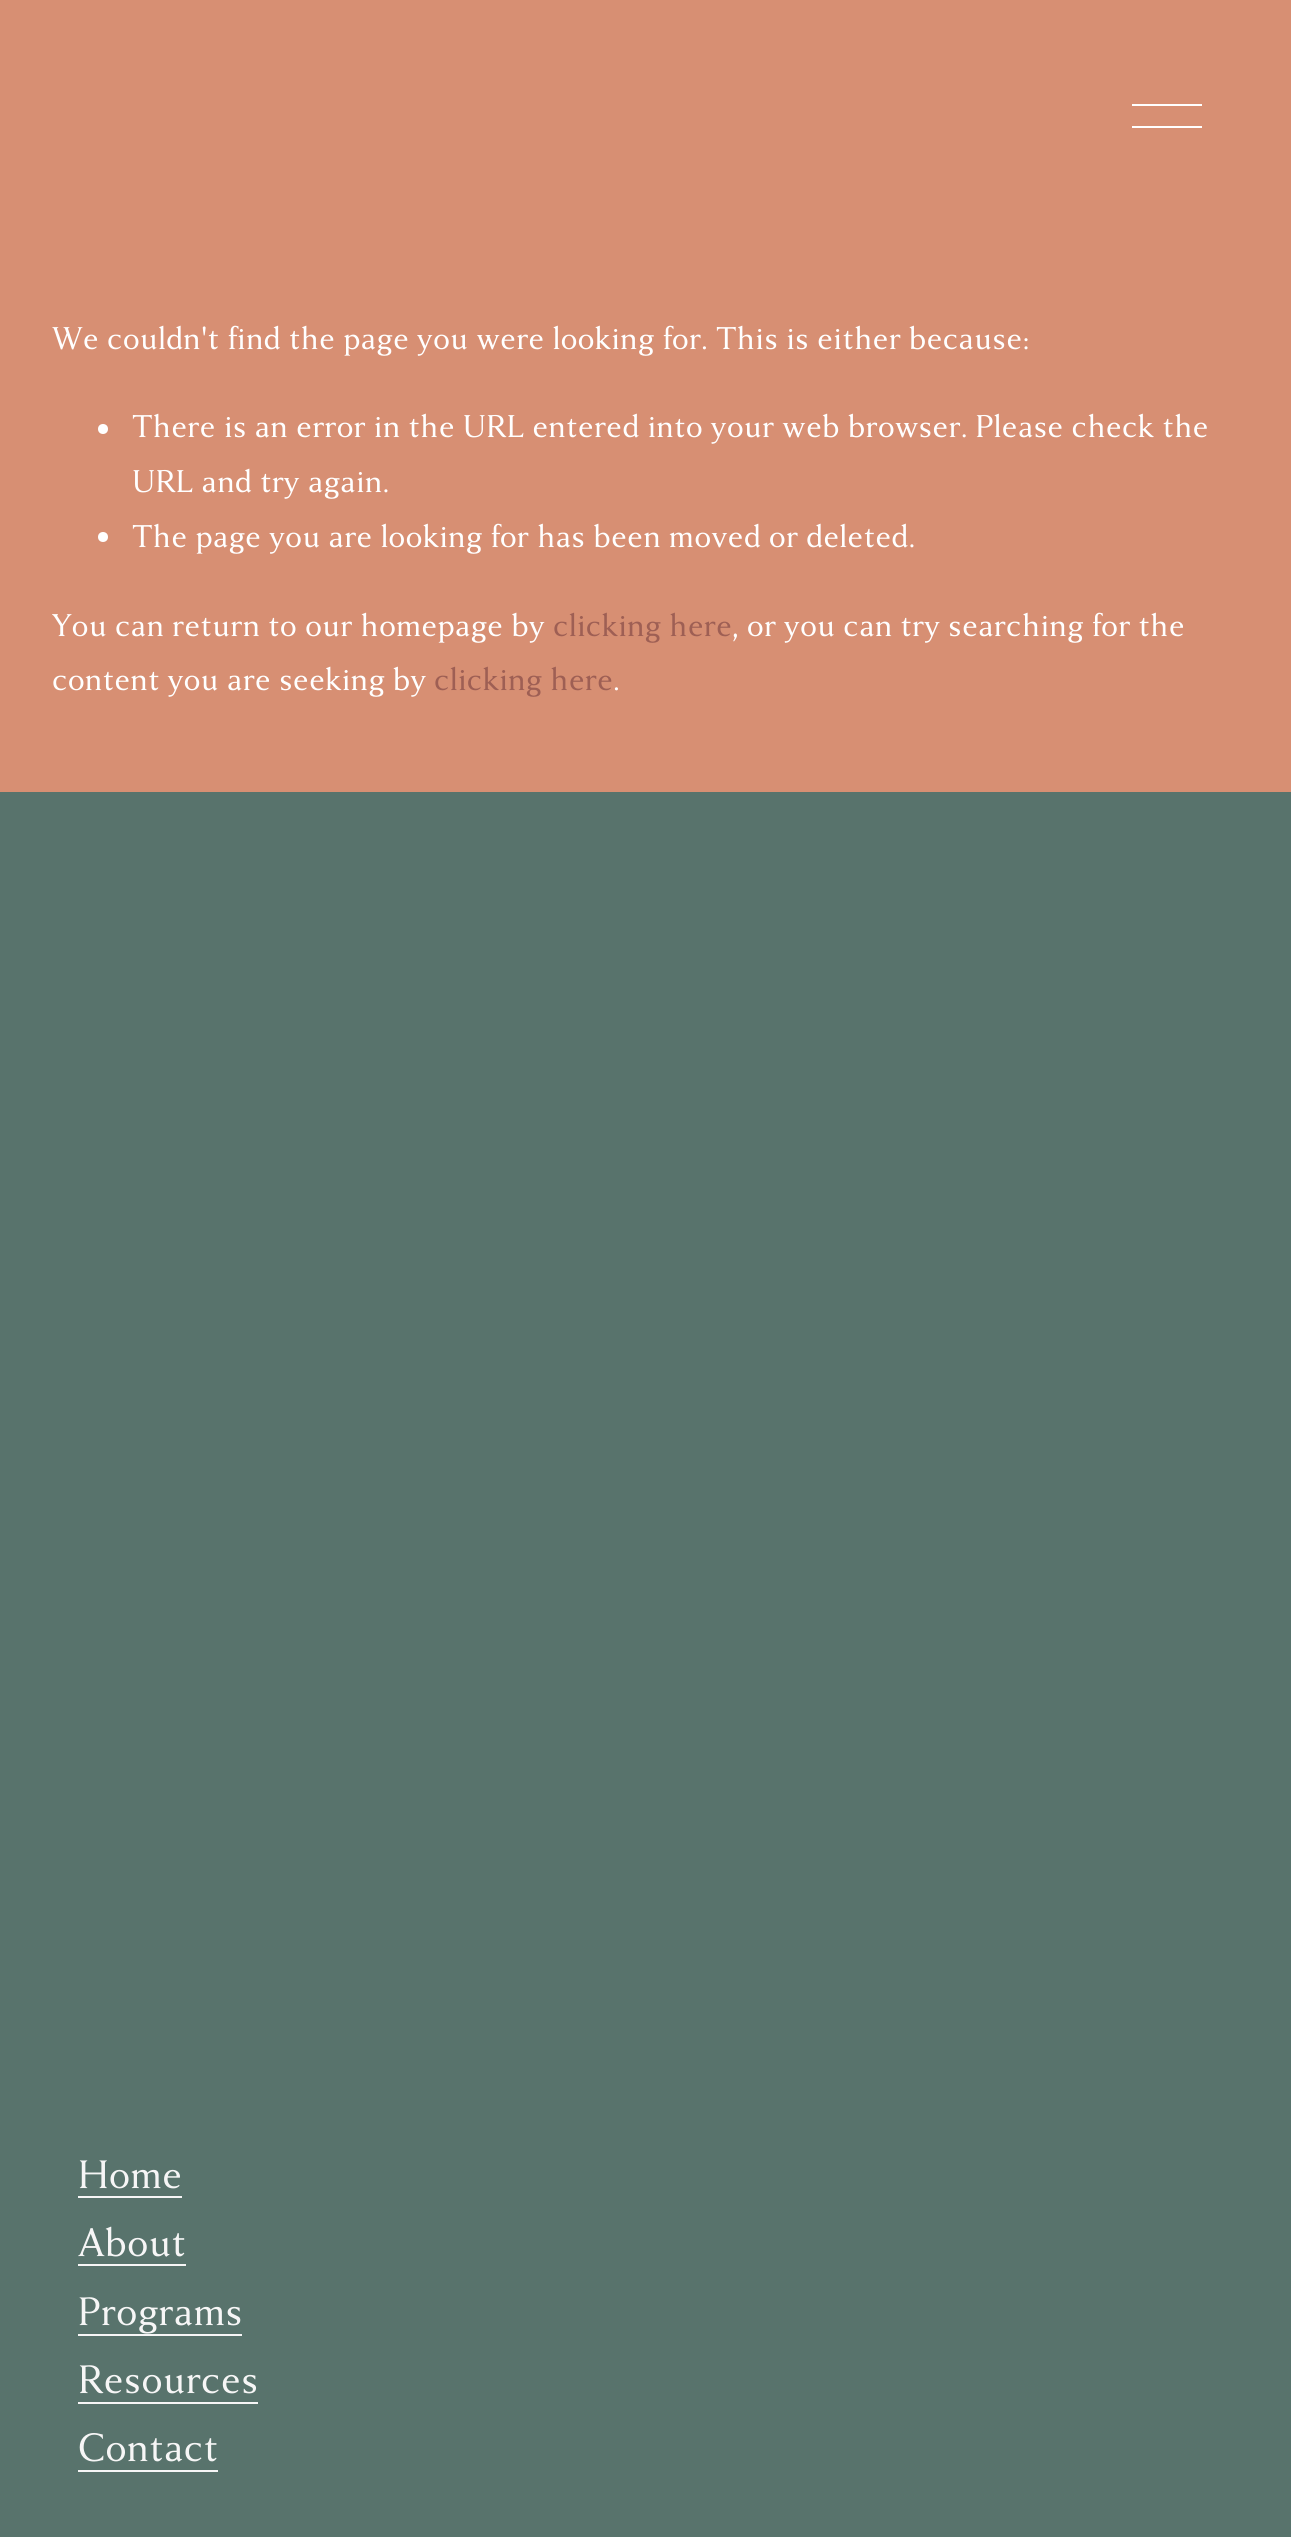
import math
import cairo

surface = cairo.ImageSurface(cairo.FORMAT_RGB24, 1291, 2537)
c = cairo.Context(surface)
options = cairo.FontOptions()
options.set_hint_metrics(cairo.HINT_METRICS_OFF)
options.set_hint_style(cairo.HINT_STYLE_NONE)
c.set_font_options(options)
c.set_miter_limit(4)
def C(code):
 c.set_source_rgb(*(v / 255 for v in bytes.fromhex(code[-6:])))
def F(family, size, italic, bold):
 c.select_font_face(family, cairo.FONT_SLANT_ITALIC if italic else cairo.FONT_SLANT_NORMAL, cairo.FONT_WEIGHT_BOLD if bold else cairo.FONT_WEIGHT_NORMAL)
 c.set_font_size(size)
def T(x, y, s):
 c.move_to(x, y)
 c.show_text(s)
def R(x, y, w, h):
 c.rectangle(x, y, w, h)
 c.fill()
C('d78f73')
c.paint()
C('ffffff')
R(1132,104,70,2)
R(1132,126,70,2)
F('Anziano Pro',34.15,0,0)
T(52,349,'We couldn\'t find the page you were looking for. This is either because:')
c.new_path()
c.arc(103,429,5,0,2 * math.pi)
c.fill()
T(132,437,'There is an error in the URL entered into your web browser. Please check the')
T(132,492,'URL and try again.')
c.new_path()
c.arc(103,537,5,0,2 * math.pi)
c.fill()
T(132,547,'The page you are looking for has been moved or deleted.')
T(52,636,'You can return to our homepage by')
C('9e5f54')
T(553,636,'clicking here')
C('ffffff')
T(732,636,', or you can try searching for the')
T(52,690,'content you are seeking by')
C('9e5f54')
T(434,690,'clicking here')
C('ffffff')
T(613,690,'.')
C('58736c')
R(0,792,1291,1745)
F('Anziano Pro',43,0,0)
C('f6f6f6')
T(78,2188,'Home')
R(78,2196,104,2)
T(78,2256,'About')
R(78,2264,108,2)
T(78,2325,'Programs')
R(78,2334,164,2)
T(78,2393,'Resources')
R(78,2402,180,2)
T(78,2461,'Contact')
R(78,2470,140,2)
surface.write_to_png('o.png')
